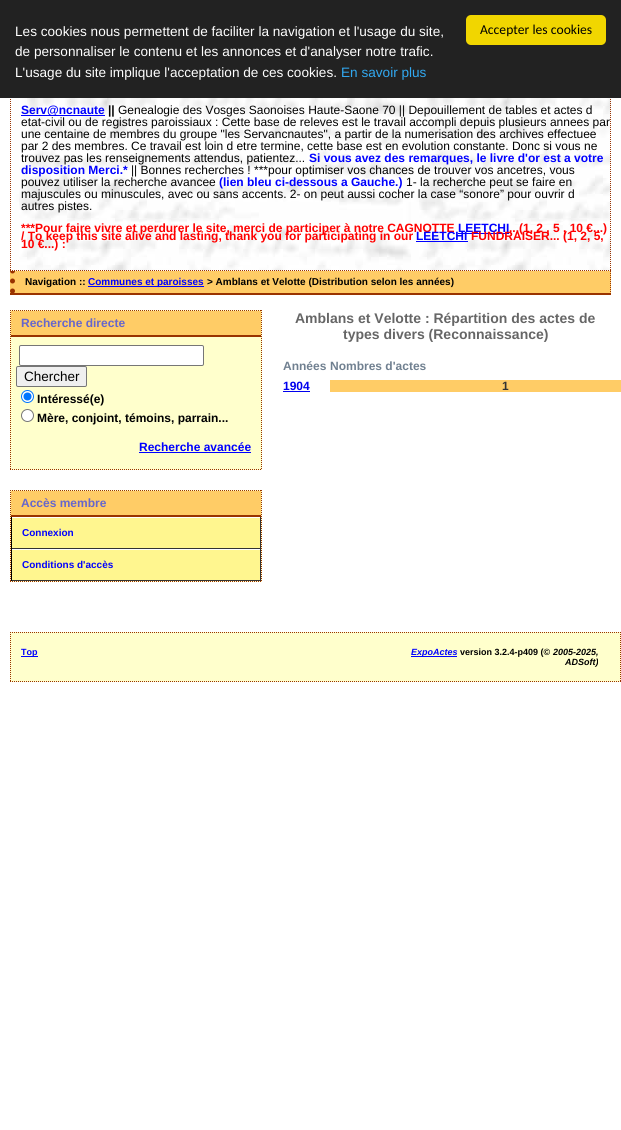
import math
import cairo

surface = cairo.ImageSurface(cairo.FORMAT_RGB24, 621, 1130)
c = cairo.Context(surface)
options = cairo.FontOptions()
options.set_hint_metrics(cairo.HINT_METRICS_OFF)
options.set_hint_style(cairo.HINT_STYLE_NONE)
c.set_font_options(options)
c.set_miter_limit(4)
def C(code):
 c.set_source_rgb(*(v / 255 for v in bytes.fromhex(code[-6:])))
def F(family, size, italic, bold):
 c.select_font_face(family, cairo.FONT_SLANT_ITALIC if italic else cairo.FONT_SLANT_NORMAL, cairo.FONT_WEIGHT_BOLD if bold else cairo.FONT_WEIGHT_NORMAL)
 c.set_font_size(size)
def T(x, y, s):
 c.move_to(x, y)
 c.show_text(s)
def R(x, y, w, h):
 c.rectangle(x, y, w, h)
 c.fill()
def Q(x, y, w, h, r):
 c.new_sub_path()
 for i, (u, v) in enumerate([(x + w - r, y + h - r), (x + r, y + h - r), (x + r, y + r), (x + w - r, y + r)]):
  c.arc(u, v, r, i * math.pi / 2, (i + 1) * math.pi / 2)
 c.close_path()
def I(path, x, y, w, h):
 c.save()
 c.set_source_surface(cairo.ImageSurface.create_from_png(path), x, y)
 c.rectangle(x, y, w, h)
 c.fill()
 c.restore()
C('ffffff')
c.paint()
C('ffcc66')
R(10,271,601,22)
c.new_path()
c.move_to(610.5,271)
c.line_to(610.5,295)
C('993300')
c.set_line_width(1)
c.set_dash([1,1])
c.stroke()
R(10,293,601,2)
c.new_path()
c.move_to(12.5,271)
c.line_to(12.5,295)
c.set_line_width(5)
c.set_line_cap(cairo.LINE_CAP_ROUND)
c.set_dash([0,10])
c.stroke()
I('1.png',10,98,601,173)
c.new_path()
c.move_to(610.5,81)
c.line_to(610.5,271)
c.set_line_width(1)
c.set_line_cap(cairo.LINE_CAP_BUTT)
c.set_dash([1,1])
c.stroke()
c.new_path()
c.move_to(10.5,81)
c.line_to(10.5,271)
c.stroke()
C('222222')
R(0,0,621,98)
F('Liberation Sans',13.6,0,0)
C('ffffff')
T(15,36,'Les cookies nous permettent de faciliter la navigation et l\'usage du site,')
T(15,56,'de personnaliser le contenu et les annonces et d\'analyser notre trafic.')
T(15,77,'L\'usage du site implique l\'acceptation de ces cookies.')
C('31a8f0')
T(341,77,'En savoir plus')
C('f1d600')
Q(466,15,140,30,5)
c.fill()
F('Carlito',13.6,0,0)
C('000000')
T(480,34,'Accepter les cookies')
c.new_path()
c.move_to(10,270.5)
c.line_to(611,270.5)
C('993300')
c.stroke()
C('0000ff')
R(21,115,84,1)
F('Liberation Sans',12,0,1)
T(21,114,'Serv@ncnaute')
C('000000')
T(108,114,'||')
F('Liberation Sans',12,0,0)
T(118,114,'Genealogie des Vosges Saonoises Haute-Saone 70 || Depouillement de tables et actes d')
T(21,126,'etat-civil ou de registres paroissiaux : Cette base de releves est le travail accompli depuis plusieurs annees par')
T(21,138,'une centaine de membres du groupe "les Servancnautes", a partir de la numerisation des archives effectuee')
T(21,150,'par 2 des membres. Ce travail est loin d etre termine, cette base est en evolution constante. Donc si vous ne')
T(21,162,'trouvez pas les renseignements attendus, patientez...')
F('Liberation Sans',12,0,1)
C('0000ff')
T(309,162,'Si vous avez des remarques, le livre d\'or est a votre')
T(21,174,'disposition Merci.*')
F('Liberation Sans',12,0,0)
C('000000')
T(131,174,'|| Bonnes recherches ! ***pour optimiser vos chances de trouver vos ancetres, vous')
T(21,186,'pouvez utiliser la recherche avancee')
F('Liberation Sans',12,0,1)
C('0000ff')
T(219,186,'(lien bleu ci-dessous a Gauche.)')
F('Liberation Sans',12,0,0)
C('000000')
T(406,186,'1- la recherche peut se faire en')
T(21,198,'majuscules ou minuscules, avec ou sans accents. 2- on peut aussi cocher la case “sonore” pour ouvrir d')
T(21,210,'autres pistes.')
F('Liberation Sans',12,0,1)
C('ff0000')
T(21,232,'***Pour faire vivre et perdurer le site, merci de participer à notre CAGNOTTE')
C('0000ff')
T(458,232,'LEETCHI')
C('ff0000')
T(509,232,'...(1, 2 , 5 , 10 €...)')
T(21,240,'/ To keep this site alive and lasting, thank you for participating in our')
C('0000ff')
R(458,233,51,1)
T(416,240,'LEETCHI')
R(416,241,52,1)
C('ff0000')
T(471,240,'FUNDRAISER... (1, 2, 5,')
T(21,248,'10 €...) :')
F('Liberation Sans',10,0,1)
C('000000')
T(25,285,'Navigation ::')
C('0000ff')
R(88,286,116,1)
T(88,285,'Communes et paroisses')
C('000000')
T(207,285,'> Amblans et Velotte (Distribution selon les années)')
C('ffffcc')
R(10,310,252,160)
c.new_path()
c.move_to(10,310.5)
c.line_to(262,310.5)
C('993300')
c.stroke()
c.new_path()
c.move_to(261.5,310)
c.line_to(261.5,470)
c.stroke()
c.new_path()
c.move_to(10,469.5)
c.line_to(262,469.5)
c.stroke()
c.new_path()
c.move_to(10.5,310)
c.line_to(10.5,470)
c.stroke()
C('ffcc66')
R(11,311,250,24)
C('993300')
R(11,335,250,2)
F('Liberation Sans',12,0,1)
C('6666cc')
T(21,327,'Recherche directe')
C('ffffff')
Q(19.5,345.5,184,20,1.5)
c.fill_preserve()
C('767676')
c.set_dash([])
c.stroke()
C('efefef')
Q(16.5,366.5,70,20,1.5)
c.fill_preserve()
C('767676')
c.stroke()
F('Liberation Sans',13.5,0,0)
C('000000')
T(24,381,'Chercher')
C('ffffff')
c.new_path()
c.arc(27.5,396.5,6,0,2 * math.pi)
c.fill_preserve()
C('0075ff')
c.stroke()
c.arc(27.5,396.5,4,0,2 * math.pi)
c.fill()
F('Liberation Sans',12,0,1)
C('000000')
T(37,403,'Intéressé(e)')
C('ffffff')
c.new_path()
c.arc(27.5,415.5,6,0,2 * math.pi)
c.fill_preserve()
C('767676')
c.stroke()
C('000000')
T(37,422,'Mère, conjoint, témoins, parrain...')
C('0000ff')
T(139,451,'Recherche avancée')
R(139,452,112,1)
C('ffffcc')
R(10,490,252,92)
c.new_path()
c.move_to(10,490.5)
c.line_to(262,490.5)
C('993300')
c.set_dash([1,1])
c.stroke()
c.new_path()
c.move_to(261.5,490)
c.line_to(261.5,582)
c.stroke()
c.new_path()
c.move_to(10,581.5)
c.line_to(262,581.5)
c.stroke()
c.new_path()
c.move_to(10.5,490)
c.line_to(10.5,582)
c.stroke()
C('ffcc66')
R(11,491,250,24)
C('993300')
R(11,515,250,2)
C('6666cc')
T(21,507,'Accès membre')
C('fff68f')
R(12,518,248,30)
C('ffffff')
R(11,517,250,1)
C('333333')
R(260,517,1,32)
R(11,548,250,1)
C('000000')
R(11,517,1,32)
F('Liberation Sans',10,0,1)
C('0000ff')
T(22,536,'Connexion')
C('fff68f')
R(12,550,248,30)
C('ffffff')
R(11,549,250,1)
C('333333')
R(260,549,1,32)
R(11,580,250,1)
C('000000')
R(11,549,1,32)
C('0000ff')
T(22,568,'Conditions d\'accès')
F('Liberation Sans',14,0,1)
C('666666')
T(295,323,'Amblans et Velotte : Répartition des actes de')
T(343,339,'types divers (Reconnaissance)')
F('Liberation Sans',12,0,1)
C('708090')
T(283,370,'Années')
T(330,370,'Nombres d\'actes')
C('0000ee')
T(283,390,'1904')
R(283,391,27,1)
C('ffcc66')
R(330,380,291,12)
C('333333')
T(502,390,'1')
C('ffffcc')
R(10,632,611,50)
c.new_path()
c.move_to(10,632.5)
c.line_to(621,632.5)
C('993300')
c.stroke()
c.new_path()
c.move_to(620.5,632)
c.line_to(620.5,682)
c.stroke()
c.new_path()
c.move_to(10,681.5)
c.line_to(621,681.5)
c.stroke()
c.new_path()
c.move_to(10.5,632)
c.line_to(10.5,682)
c.stroke()
C('0000ff')
R(21,656,17,1)
F('Liberation Sans',9,0,1)
T(21,655,'Top')
R(411,656,46,1)
F('Liberation Sans',9,1,1)
T(411,655,'ExpoActes')
F('Liberation Sans',9,0,1)
C('000000')
T(460,655,'version 3.2.4-p409 (©')
F('Liberation Sans',9,1,1)
T(553,655,'2005-2025,')
T(565,665,'ADSoft)')
surface.write_to_png('o.png')
